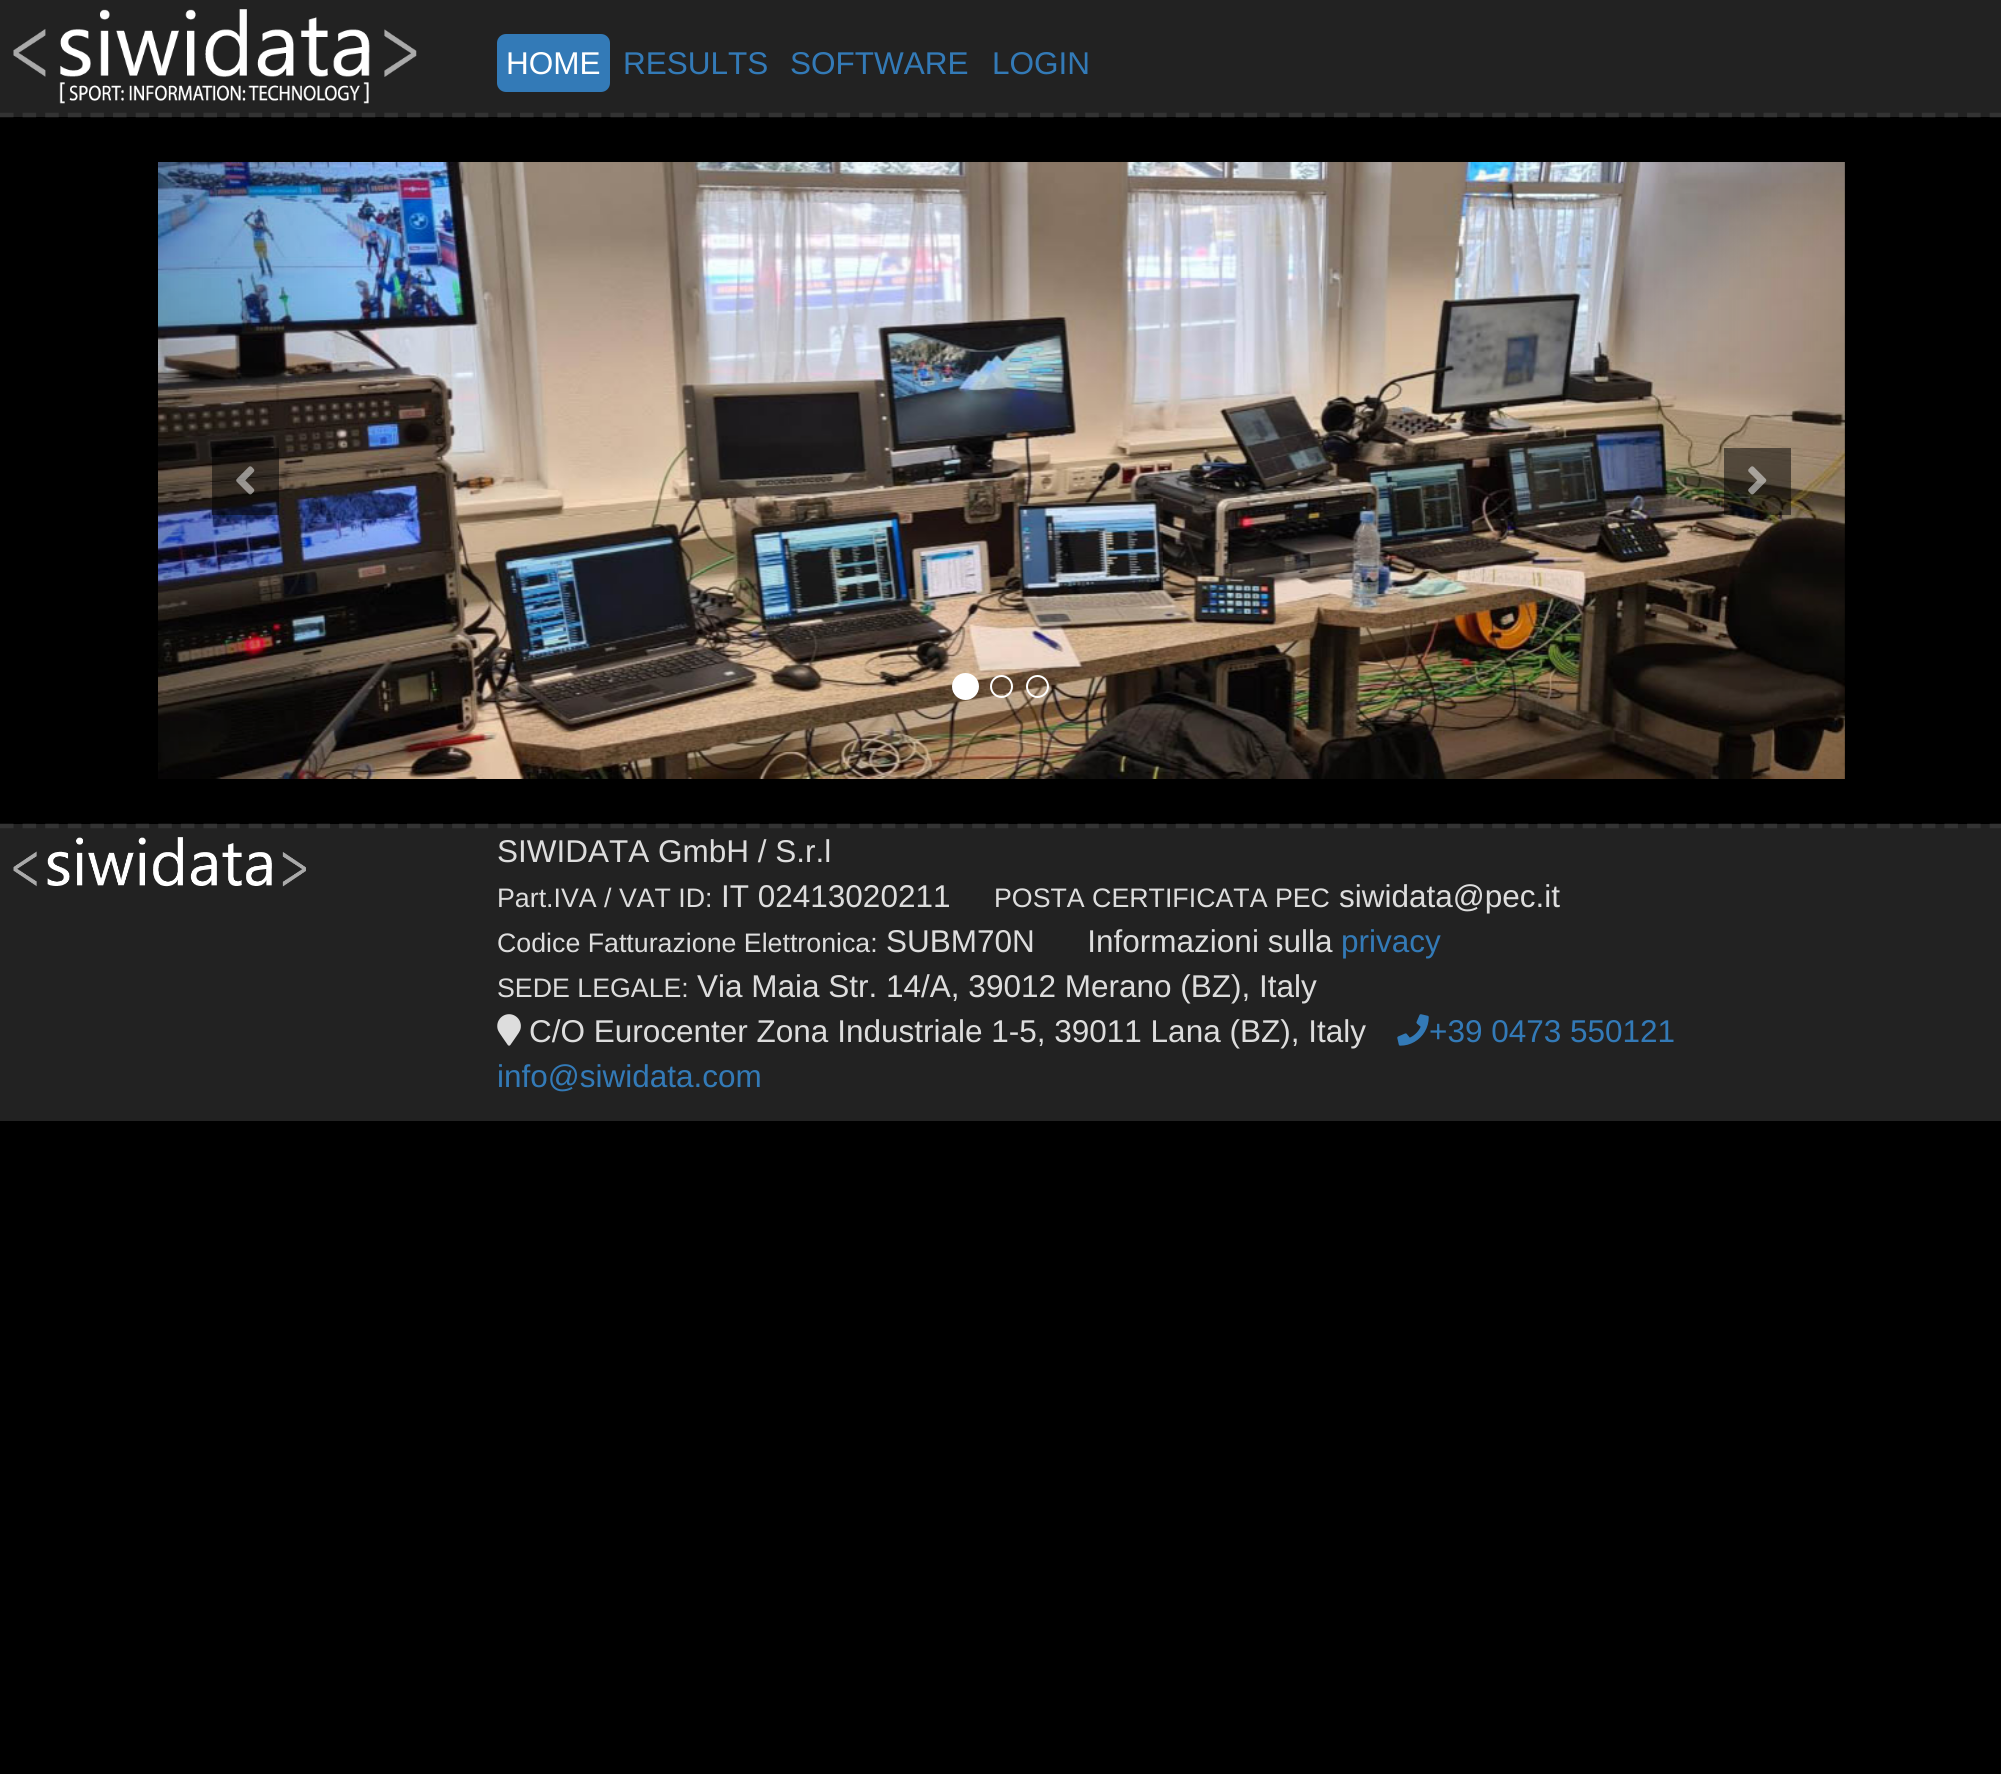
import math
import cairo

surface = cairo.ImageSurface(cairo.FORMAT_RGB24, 2001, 1774)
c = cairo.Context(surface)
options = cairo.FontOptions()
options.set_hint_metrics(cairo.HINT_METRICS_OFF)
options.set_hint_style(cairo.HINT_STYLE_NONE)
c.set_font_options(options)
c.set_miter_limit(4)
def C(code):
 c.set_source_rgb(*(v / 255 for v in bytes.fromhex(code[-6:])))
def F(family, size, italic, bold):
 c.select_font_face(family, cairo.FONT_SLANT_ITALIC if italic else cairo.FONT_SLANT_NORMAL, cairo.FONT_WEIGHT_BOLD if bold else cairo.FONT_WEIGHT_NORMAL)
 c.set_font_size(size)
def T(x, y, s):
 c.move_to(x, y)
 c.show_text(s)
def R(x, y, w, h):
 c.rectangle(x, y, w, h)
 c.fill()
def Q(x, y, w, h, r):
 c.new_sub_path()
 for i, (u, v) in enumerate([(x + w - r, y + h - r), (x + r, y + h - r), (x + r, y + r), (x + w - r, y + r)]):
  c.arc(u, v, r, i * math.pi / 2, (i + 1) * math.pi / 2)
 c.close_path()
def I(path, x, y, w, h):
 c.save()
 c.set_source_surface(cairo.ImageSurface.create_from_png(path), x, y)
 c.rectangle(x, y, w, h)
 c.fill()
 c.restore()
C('000000')
c.paint()
C('222222')
R(0,0,2001,117)
c.new_path()
c.move_to(0,115)
c.line_to(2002.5,115)
C('333333')
c.set_line_width(4.5)
c.set_dash([13.5,9.11])
c.stroke()
I('1.png',13,9,404,95)
C('337ab7')
Q(497,34,113,58,9)
c.fill()
F('Liberation Sans',31.5,0,0)
C('ffffff')
T(506,74,'HOME')
C('337ab7')
T(623,74,'RESULTS')
T(790,74,'SOFTWARE')
T(992,74,'LOGIN')
I('2.png',158,162,1687,617)
c.set_source_rgba(0,0,0,0.5)
R(212,448,67,67)
I('3.png',236,466,19,29)
gradient = cairo.LinearGradient(1593,470,1845,470)
gradient.add_color_stop_rgba(0,0,0,0,0)
gradient.add_color_stop_rgba(1,0,0,0,.25)
c.set_source(gradient)
R(1615,162,230,617)
c.set_source_rgba(0,0,0,0.5)
R(1724,448,67,67)
I('4.png',1748,466,19,29)
C('ffffff')
c.arc(965.5,686.5,12.5,0,2 * math.pi)
c.fill_preserve()
c.set_line_width(2)
c.set_dash([])
c.stroke()
c.arc(1001.5,686.5,10.5,0,2 * math.pi)
c.stroke()
c.arc(1037.5,686.5,10.5,0,2 * math.pi)
c.stroke()
C('222222')
R(0,824,2001,297)
c.new_path()
c.move_to(0,826)
c.line_to(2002.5,826)
C('333333')
c.set_line_width(4.5)
c.set_dash([13.5,9.11])
c.stroke()
I('5.png',13,837,293,50)
C('dddddd')
T(497,862,'SIWIDATA GmbH / S.r.l')
F('Liberation Sans',26.75,0,0)
T(497,907,'Part.IVA / VAT ID:')
F('Liberation Sans',31.5,0,0)
T(721,907,'IT 02413020211')
F('Liberation Sans',26.75,0,0)
T(994,907,'POSTA CERTIFICATA PEC')
F('Liberation Sans',31.5,0,0)
T(1339,907,'siwidata@pec.it')
F('Liberation Sans',26.75,0,0)
T(497,952,'Codice Fatturazione Elettronica:')
F('Liberation Sans',31.5,0,0)
T(886,952,'SUBM70N      Informazioni sulla')
C('337ab7')
T(1341,952,'privacy')
F('Liberation Sans',26.75,0,0)
C('dddddd')
T(497,997,'SEDE LEGALE:')
F('Liberation Sans',31.5,0,0)
T(697,997,'Via Maia Str. 14/A, 39012 Merano (BZ), Italy')
I('6.png',497,1014,24,32)
T(529,1042,'C/O Eurocenter Zona Industriale 1-5, 39011 Lana (BZ), Italy')
I('7.png',1397,1014,32,32)
C('337ab7')
T(1429,1042,'+39 0473 550121')
T(497,1087,'info@siwidata.com')
surface.write_to_png('o.png')
